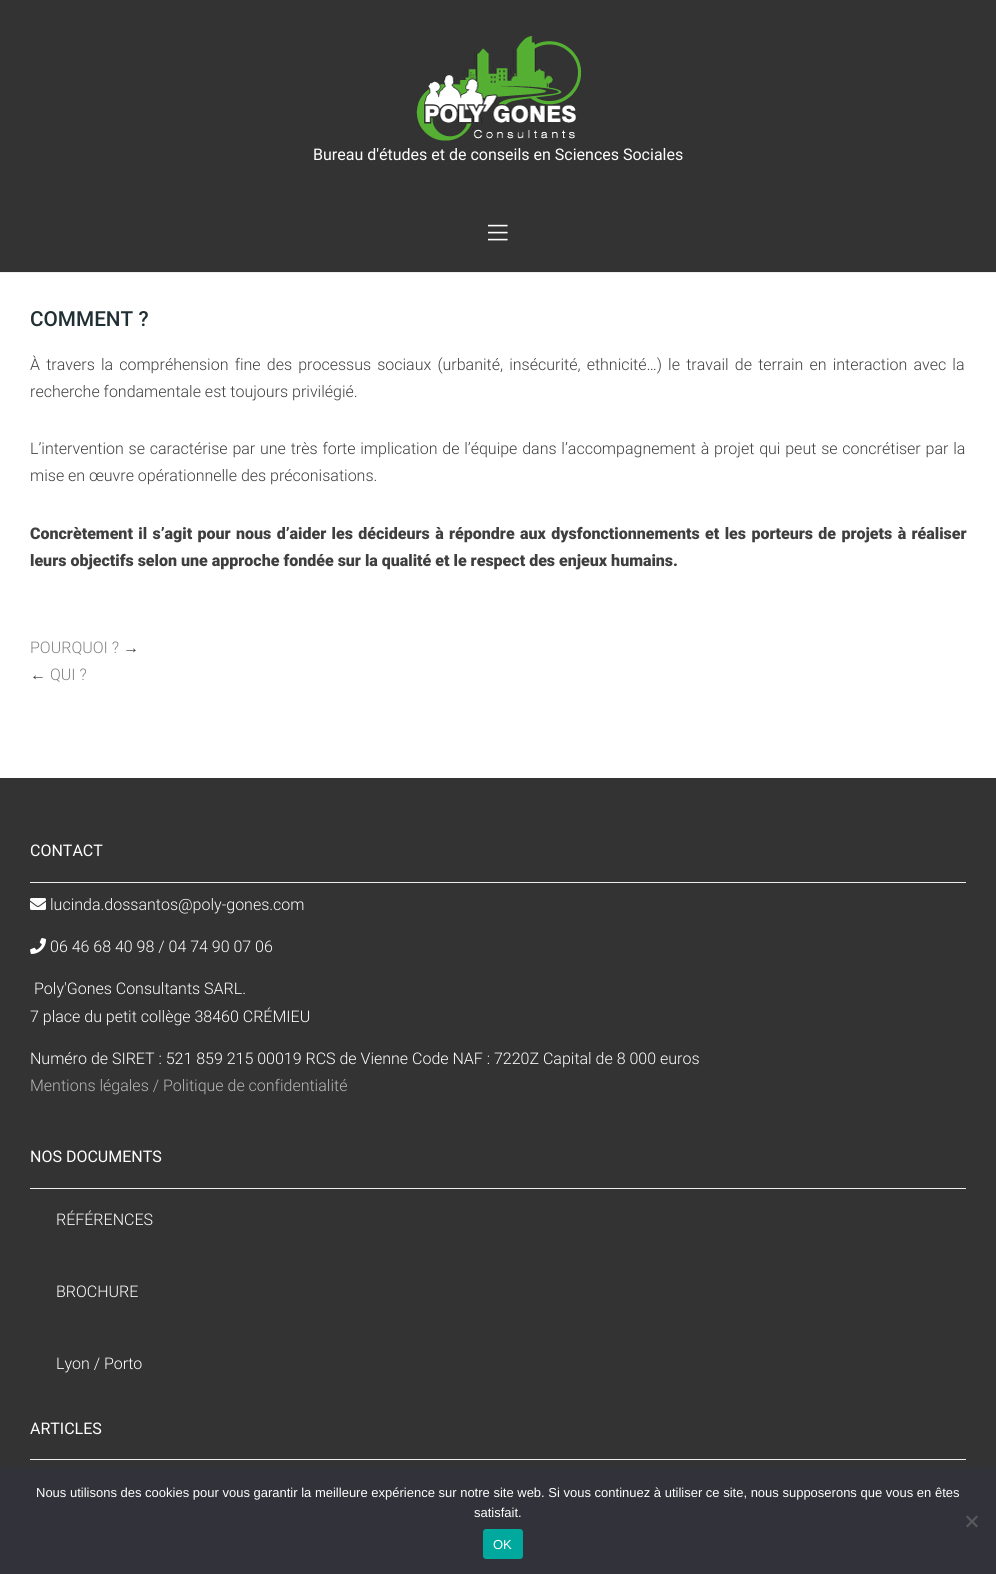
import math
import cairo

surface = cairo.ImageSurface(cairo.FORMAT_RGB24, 996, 1574)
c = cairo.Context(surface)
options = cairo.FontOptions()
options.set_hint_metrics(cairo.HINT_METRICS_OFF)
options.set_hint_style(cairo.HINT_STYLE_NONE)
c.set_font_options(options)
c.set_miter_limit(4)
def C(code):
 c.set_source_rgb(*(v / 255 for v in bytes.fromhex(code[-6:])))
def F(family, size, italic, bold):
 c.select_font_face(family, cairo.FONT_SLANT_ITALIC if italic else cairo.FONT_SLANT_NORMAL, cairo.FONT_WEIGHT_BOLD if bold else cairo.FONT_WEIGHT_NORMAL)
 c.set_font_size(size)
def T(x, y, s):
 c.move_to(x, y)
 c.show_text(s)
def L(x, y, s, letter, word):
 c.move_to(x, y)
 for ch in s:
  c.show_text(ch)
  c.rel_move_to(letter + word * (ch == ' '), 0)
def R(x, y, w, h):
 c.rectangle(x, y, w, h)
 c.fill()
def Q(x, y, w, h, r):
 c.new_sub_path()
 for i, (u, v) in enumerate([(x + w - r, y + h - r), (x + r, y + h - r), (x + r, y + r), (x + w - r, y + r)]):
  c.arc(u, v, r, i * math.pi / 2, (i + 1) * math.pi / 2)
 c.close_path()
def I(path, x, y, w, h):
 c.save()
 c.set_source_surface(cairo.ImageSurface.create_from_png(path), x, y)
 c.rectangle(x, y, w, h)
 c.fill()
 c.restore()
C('333333')
c.paint()
C('eeeeee')
R(0,272,996,1)
I('1.png',416,33,166,108)
F('Roboto',16,0,0)
C('ffffff')
T(313,160,'Bureau d\'études et de conseils en Sciences Sociales')
I('2.png',488,224,20,17)
R(0,273,996,505)
F('Roboto Medium',20.75,0,0)
C('202f33')
T(30,326,'COMMENT ?')
F('Roboto Light',16,0,0)
C('3f3f3f')
L(30,370,'À travers la compréhension fine des processus sociaux (urbanité, insécurité, ethnicité…) le travail de terrain en interaction avec la',0,2.25)
T(30,397,'recherche fondamentale est toujours privilégié.')
L(30,454,'L’intervention se caractérise par une très forte implication de l’équipe dans l’accompagnement à projet qui peut se concrétiser par la',0,.9)
T(30,481,'mise en œuvre opérationnelle des préconisations.')
F('Roboto Black',16,0,0)
L(30,539,'Concrètement il s’agit pour nous d’aider les décideurs à répondre aux dysfonctionnements et les porteurs de projets à réaliser',0,1.4)
T(30,566,'leurs objectifs selon une approche fondée sur la qualité et le respect des enjeux humains.')
F('Roboto Light',16,0,0)
C('848484')
T(30,653,'POURQUOI ?')
F('Liberation Serif',16,0,0)
C('3f3f3f')
T(123,653,'→')
T(30,680,'←')
F('Roboto Light',16,0,0)
C('848484')
T(50,680,'QUI ?')
F('Roboto',16,0,0)
C('ffffff')
T(30,856,'CONTACT')
C('eeeeee')
R(30,882,936,1)
I('3.png',30,898,16,12)
F('Roboto Light',16,0,0)
C('ffffff')
T(50,910,'lucinda.dossantos@poly-gones.com')
I('4.png',30,938,16,16)
T(50,952,'06 46 68 40 98 / 04 74 90 07 06')
T(34,994,'Poly\'Gones Consultants SARL.')
T(30,1022,'7 place du petit collège 38460 CRÉMIEU')
T(30,1064,'Numéro de SIRET : 521 859 215 00019 RCS de Vienne Code NAF : 7220Z Capital de 8 000 euros')
C('b5b5b5')
T(30,1091,'Mentions légales / Politique de confidentialité')
F('Roboto',16,0,0)
C('ffffff')
T(30,1162,'NOS DOCUMENTS')
C('eeeeee')
R(30,1188,936,1)
F('Roboto Light',16,0,0)
C('ffffff')
T(56,1225,'RÉFÉRENCES')
T(56,1297,'BROCHURE')
T(56,1369,'Lyon / Porto')
F('Roboto',16,0,0)
T(30,1434,'ARTICLES')
C('eeeeee')
R(30,1459,936,1)
C('32323a')
R(0,1468,996,106)
F('Liberation Sans',13,0,0)
C('ffffff')
T(36,1497,'Nous utilisons des cookies pour vous garantir la meilleure expérience sur notre site web. Si vous continuez à utiliser ce site, nous supposerons que vous en êtes')
T(474,1517,'satisfait.')
C('59595d')
c.new_path()
c.move_to(976.5,1515.5)
c.line_to(978,1517)
c.line_to(967.5,1527.5)
c.line_to(966,1526)
c.close_path()
c.fill()
c.new_path()
c.move_to(966,1517)
c.line_to(967.5,1515.5)
c.line_to(978,1526)
c.line_to(976.5,1527.5)
c.close_path()
c.fill()
C('00a99d')
Q(483,1529,40,30,3)
c.fill()
C('ffffff')
T(493,1549,'OK')
surface.write_to_png('o.png')
